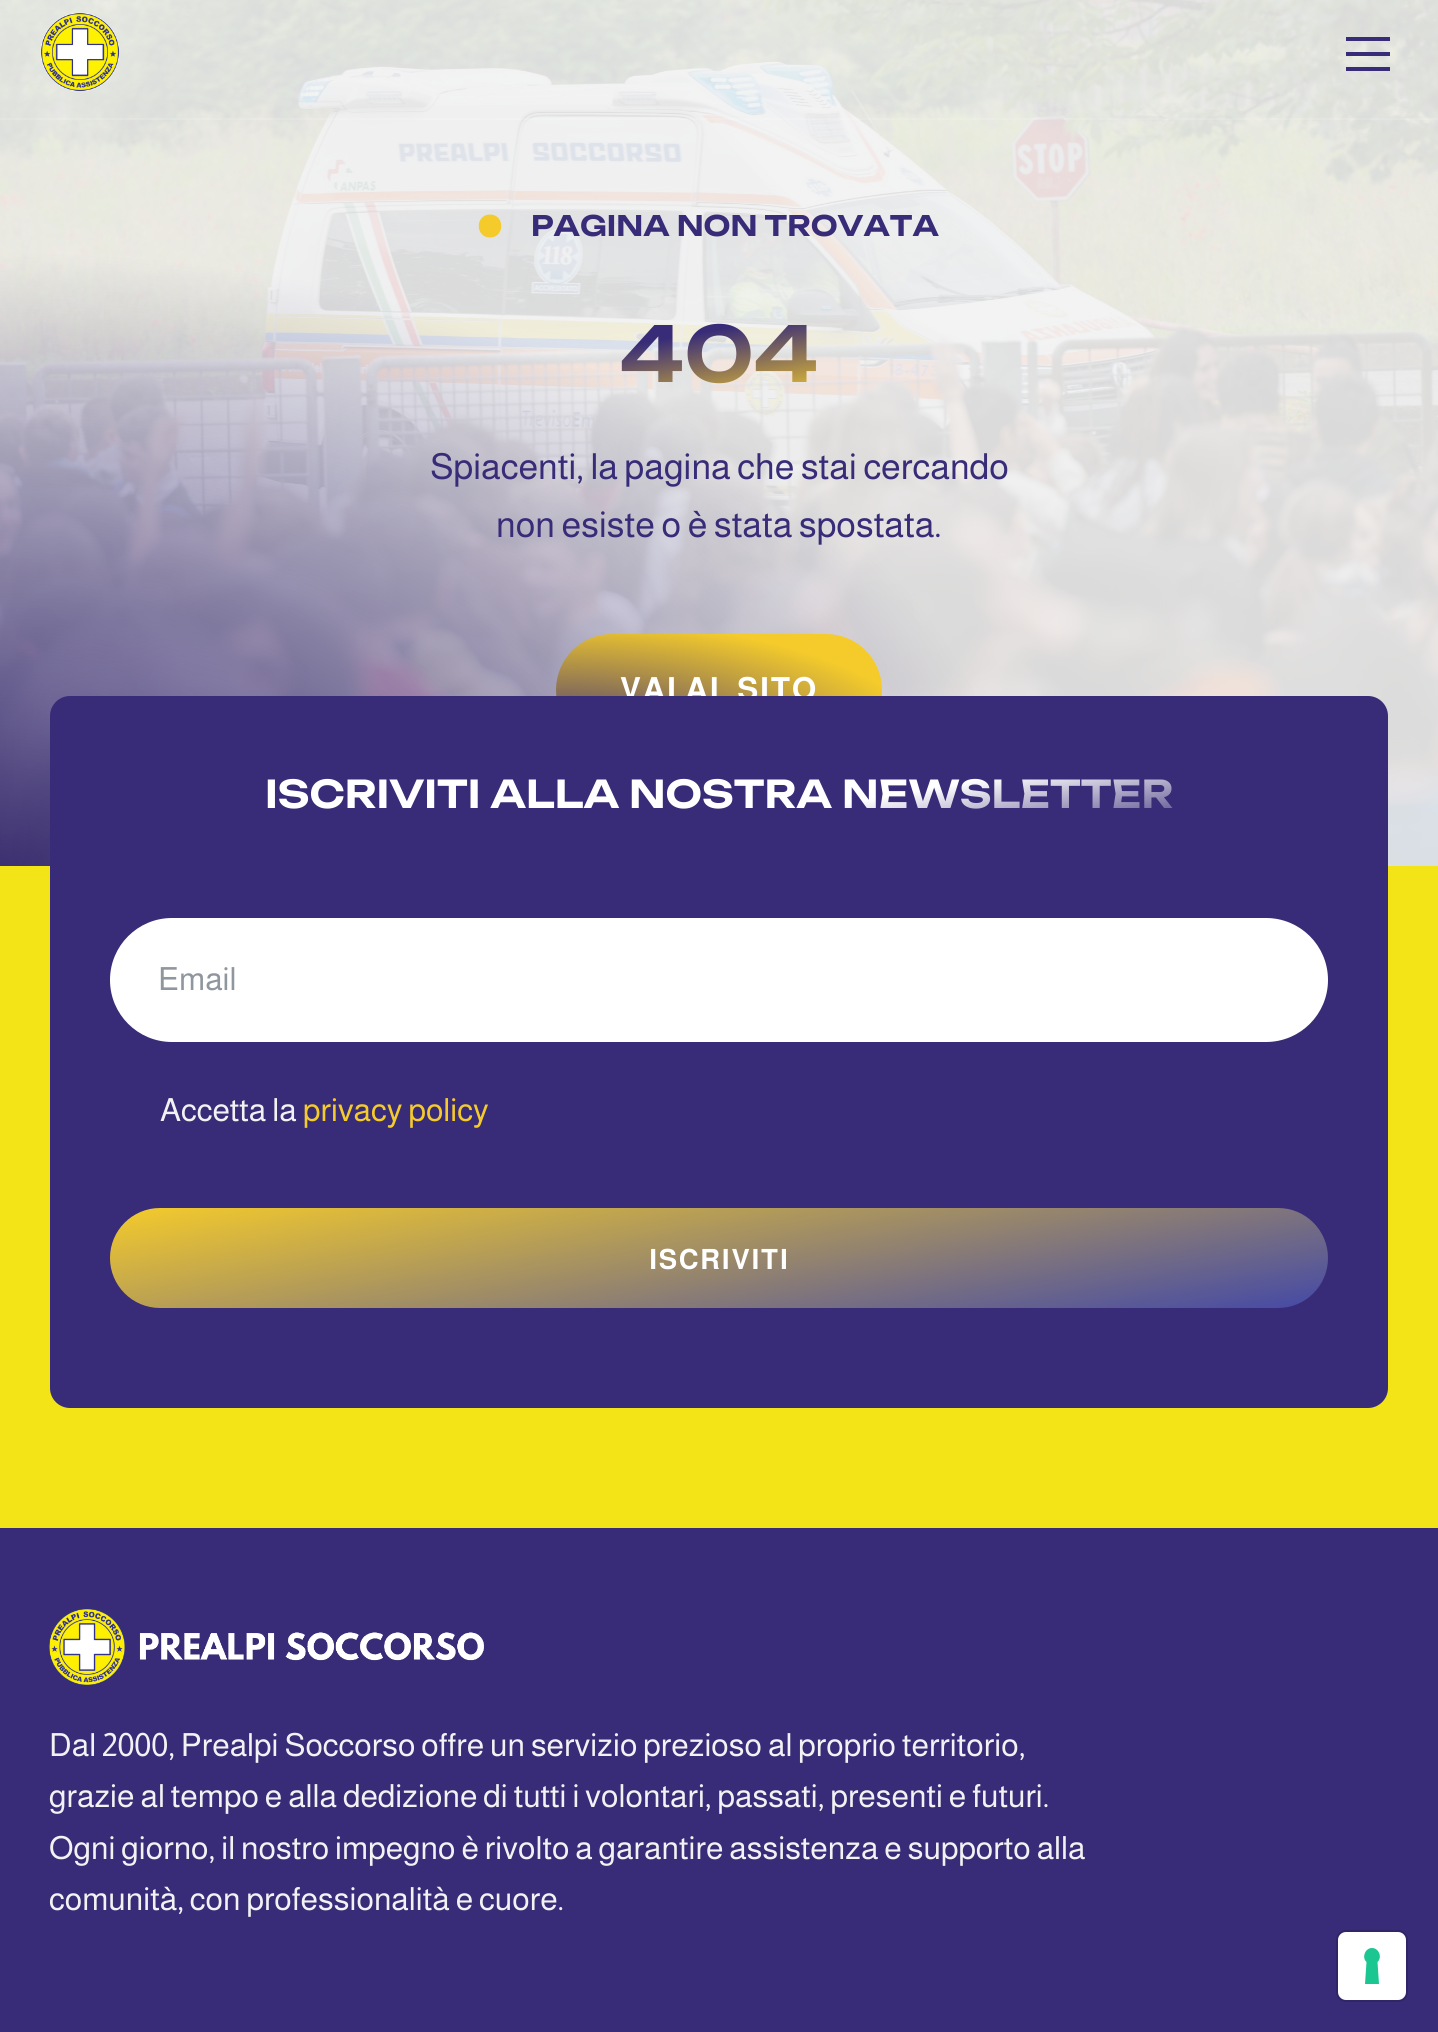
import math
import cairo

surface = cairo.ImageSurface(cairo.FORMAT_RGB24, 1438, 2032)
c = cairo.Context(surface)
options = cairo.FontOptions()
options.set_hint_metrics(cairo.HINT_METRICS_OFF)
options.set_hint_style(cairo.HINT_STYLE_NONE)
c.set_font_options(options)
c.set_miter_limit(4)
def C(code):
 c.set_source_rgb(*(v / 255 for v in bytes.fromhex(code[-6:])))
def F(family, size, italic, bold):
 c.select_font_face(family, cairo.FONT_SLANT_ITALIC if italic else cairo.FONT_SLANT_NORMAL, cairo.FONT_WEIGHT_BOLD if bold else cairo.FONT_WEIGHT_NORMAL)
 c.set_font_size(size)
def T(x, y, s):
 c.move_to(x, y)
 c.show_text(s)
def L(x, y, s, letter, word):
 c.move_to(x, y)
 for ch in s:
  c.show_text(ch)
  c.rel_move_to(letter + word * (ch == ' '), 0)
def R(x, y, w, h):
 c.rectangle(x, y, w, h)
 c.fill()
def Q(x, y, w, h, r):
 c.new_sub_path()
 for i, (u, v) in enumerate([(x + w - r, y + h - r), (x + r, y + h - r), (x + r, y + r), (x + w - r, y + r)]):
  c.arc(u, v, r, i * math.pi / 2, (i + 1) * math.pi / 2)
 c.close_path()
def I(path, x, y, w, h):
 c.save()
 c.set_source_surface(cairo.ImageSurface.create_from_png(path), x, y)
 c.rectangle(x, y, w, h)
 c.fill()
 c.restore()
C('ffffff')
c.paint()
I('2.png',0,0,1438,866)
c.set_source_rgba(1,1,1,0.12)
R(0,118,1438,2)
I('1.png',40,12,80,80)
C('382c78')
c.new_path()
c.move_to(1346,37)
c.line_to(1346,41)
c.line_to(1390,41)
c.line_to(1390,37)
c.close_path()
c.move_to(1346,52)
c.line_to(1346,56)
c.line_to(1390,56)
c.line_to(1390,52)
c.close_path()
c.move_to(1346,67)
c.line_to(1346,71)
c.line_to(1390,71)
c.line_to(1390,67)
c.close_path()
c.fill()
C('f4cb2b')
c.new_path()
c.move_to(490,214.5)
c.curve_to(475,214.5,475,237.5,490,237.5)
c.curve_to(505,237.5,505,214.5,490,214.5)
c.close_path()
c.fill()
F('Unbounded SemiBold',28,0,0)
C('382c78')
T(531,236,'PAGINA NON TROVATA')
F('Unbounded SemiBold',76,0,0)
gradient = cairo.LinearGradient(708,292,730,415)
gradient.add_color_stop_rgba(.31,0.22,0.173,0.471,1)
gradient.add_color_stop_rgba(1,0.957,0.796,0.169,1)
c.set_source(gradient)
T(620,382,'404')
F('Almarai',36,0,0)
C('382c78')
T(430,479,'Spiacenti, la pagina che stai cercando')
T(496,537,'non esiste o è stata spostata.')
gradient = cairo.RadialGradient(0,0,0,0,0,1)
gradient.set_matrix(cairo.Matrix(1 / 461, 0, 0, 1 / 158, -1 * 556 / 461, -1 * 746 / 158))
gradient.add_color_stop_rgba(0,0.22,0.173,0.471,1)
gradient.add_color_stop_rgba(.8,0.957,0.796,0.169,1)
c.set_source(gradient)
Q(556,634,326,112,56)
c.fill()
F('Almarai',32,0,1)
C('ffffff')
L(620,700,'VAI AL SITO',1.6,0)
C('f2e416')
R(0,866,1438,662)
C('382c78')
Q(50,696,1338,712,20)
c.fill()
F('Unbounded SemiBold',38,0,0)
C('ffffff')
T(265,808,'ISCRIVITI ALLA NOSTRA')
gradient = cairo.LinearGradient(998,745,1016,846)
gradient.add_color_stop_rgba(.3,1,1,1,1)
gradient.add_color_stop_rgba(1,0.361,0.322,0.565,1)
c.set_source(gradient)
T(842,808,'NEWSLETTER')
C('ffffff')
Q(110,918,1218,124,62)
c.fill()
F('Almarai',32,0,0)
C('8f969e')
T(158,990,'Email')
C('f2f2f2')
T(160,1121,'Accetta la')
C('f4cb2b')
T(303,1121,'privacy policy')
gradient = cairo.LinearGradient(692,1105,746,1411)
gradient.add_color_stop_rgba(0,0.957,0.796,0.169,1)
gradient.add_color_stop_rgba(1,0.267,0.286,0.651,1)
c.set_source(gradient)
Q(110,1208,1218,100,50)
c.fill()
F('Almarai',28,0,1)
C('ffffff')
L(649,1269,'ISCRIVITI',1.6,0)
gradient = cairo.RadialGradient(0,0,0,0,0,1)
gradient.set_matrix(cairo.Matrix(1 / 2034, 0, 0, 1 / 3086, -1 * 0 / 2034, -1 * 3710 / 3086))
gradient.add_color_stop_rgba(0,0.267,0.286,0.651,1)
gradient.add_color_stop_rgba(.35,0.22,0.173,0.471,1)
c.set_source(gradient)
R(0,1528,1438,504)
I('3.png',48,1608,436,78)
F('Almarai',32,0,0)
C('f2f2f2')
T(49,1756,'Dal 2000, Prealpi Soccorso offre un servizio prezioso al proprio territorio,')
T(49,1807,'grazie al tempo e alla dedizione di tutti i volontari, passati, presenti e futuri.')
T(49,1859,'Ogni giorno, il nostro impegno è rivolto a garantire assistenza e supporto alla')
T(49,1910,'comunità, con professionalità e cuore.')
Q(1337,1931,70,70,9)
C('302566')
c.stroke()
C('ffffff')
Q(1338,1932,68,68,8)
c.fill()
C('1cc691')
c.set_fill_rule(cairo.FILL_RULE_EVEN_ODD)
c.new_path()
c.move_to(1372,1948)
c.curve_to(1379,1948,1382.5,1957.5,1377.5,1962)
c.line_to(1379,1984)
c.line_to(1365,1984)
c.line_to(1366.5,1962)
c.curve_to(1361.5,1957.5,1365,1948,1372,1948)
c.close_path()
c.fill()
surface.write_to_png('o.png')
